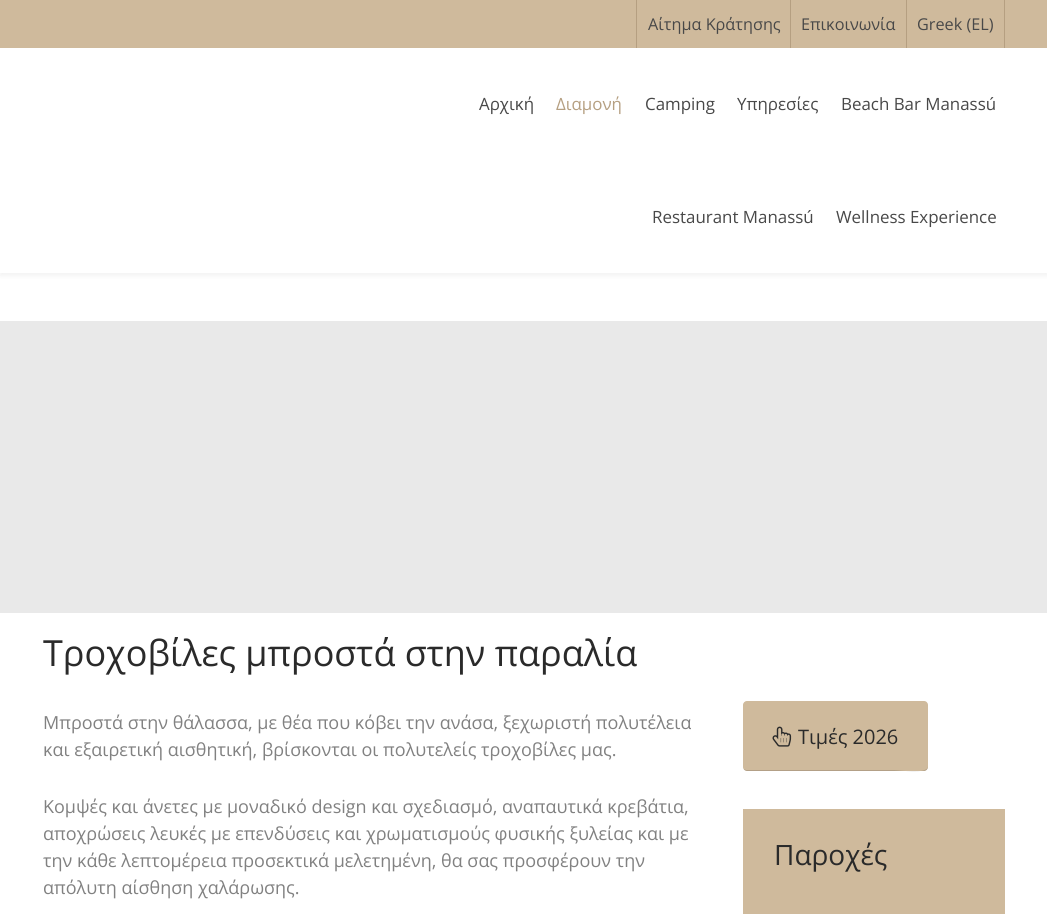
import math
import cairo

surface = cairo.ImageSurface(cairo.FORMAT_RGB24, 1047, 914)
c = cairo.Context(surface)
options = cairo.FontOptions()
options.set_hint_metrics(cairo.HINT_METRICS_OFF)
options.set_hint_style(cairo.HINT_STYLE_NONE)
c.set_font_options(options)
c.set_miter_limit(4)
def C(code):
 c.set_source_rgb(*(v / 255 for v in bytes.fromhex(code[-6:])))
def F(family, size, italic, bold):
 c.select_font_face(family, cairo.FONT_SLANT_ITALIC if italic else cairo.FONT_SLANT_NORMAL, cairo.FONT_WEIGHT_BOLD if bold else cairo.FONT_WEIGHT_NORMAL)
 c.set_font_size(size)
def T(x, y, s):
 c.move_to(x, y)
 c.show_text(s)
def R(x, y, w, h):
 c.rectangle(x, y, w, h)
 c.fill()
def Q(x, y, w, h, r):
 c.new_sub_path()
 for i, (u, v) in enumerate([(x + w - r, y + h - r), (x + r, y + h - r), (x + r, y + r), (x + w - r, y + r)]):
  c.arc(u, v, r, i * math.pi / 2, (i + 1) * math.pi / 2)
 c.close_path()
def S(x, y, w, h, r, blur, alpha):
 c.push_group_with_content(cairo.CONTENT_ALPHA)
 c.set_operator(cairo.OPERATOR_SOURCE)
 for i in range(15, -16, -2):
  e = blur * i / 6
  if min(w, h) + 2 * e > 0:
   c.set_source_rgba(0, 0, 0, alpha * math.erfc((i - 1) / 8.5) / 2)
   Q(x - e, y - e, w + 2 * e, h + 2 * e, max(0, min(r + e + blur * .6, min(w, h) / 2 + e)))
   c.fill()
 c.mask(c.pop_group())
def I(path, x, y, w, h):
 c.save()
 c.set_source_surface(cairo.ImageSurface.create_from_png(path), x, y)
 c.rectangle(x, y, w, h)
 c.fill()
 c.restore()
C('ffffff')
c.paint()
C('cfba9c')
R(0,0,1047,48)
C('b59f81')
R(790,0,1,48)
R(636,0,1,48)
F('Open Sans',16.25,0,0)
C('484848')
T(648,30,'Αίτημα Κράτησης')
C('b59f81')
R(906,0,1,48)
C('484848')
T(801,30,'Επικοινωνία')
C('b59f81')
R(1004,0,1,48)
C('484848')
T(917,30,'Greek (EL)')
c.save()
c.set_fill_rule(cairo.FILL_RULE_EVEN_ODD)
c.new_path()
c.move_to(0,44)
c.line_to(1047,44)
c.line_to(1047,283)
c.line_to(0,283)
c.close_path()
c.move_to(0,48)
c.line_to(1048,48)
c.line_to(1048,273)
c.line_to(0,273)
c.close_path()
c.clip()
C('000000')
S(0,51,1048,225,0,2,.05)
c.restore()
gradient = cairo.LinearGradient(524,47,524,273)
gradient.add_color_stop_rgba(0,1,1,1,.9)
gradient.add_color_stop_rgba(1,1,1,1,.66)
c.set_source(gradient)
R(1,272,1046,1)
F('Open Sans',16.9,0,0)
C('484848')
T(479,110,'Αρχική')
C('b59f81')
T(556,110,'Διαμονή')
C('484848')
T(645,110,'Camping')
T(737,110,'Υπηρεσίες')
T(841,110,'Beach Bar Manassú')
T(652,223,'Restaurant Manassú')
T(836,223,'Wellness Experience')
C('e9e9e9')
R(0,321,1047,292)
F('Open Sans',36,0,0)
C('2a2a2a')
T(43,666,'Τροχοβίλες μπροστά στην παραλία')
F('Open Sans',18,0,0)
C('818181')
T(43,729,'Μπροστά στην θάλασσα, με θέα που κόβει την ανάσα, ξεχωριστή πολυτέλεια')
T(43,756,'και εξαιρετική αισθητική, βρίσκονται οι πολυτελείς τροχοβίλες μας.')
T(43,813,'Κομψές και άνετες με μοναδικό design και σχεδιασμό, αναπαυτικά κρεβάτια,')
T(43,840,'αποχρώσεις λευκές με επενδύσεις και χρωματισμούς φυσικής ξυλείας και με')
T(43,867,'την κάθε λεπτομέρεια προσεκτικά μελετημένη, θα σας προσφέρουν την')
T(43,894,'απόλυτη αίσθηση χαλάρωσης.')
C('cfba9c')
Q(743,701,185,70,4)
c.fill()
c.set_source_rgba(0,0,0,0.14)
c.new_path()
c.move_to(744,769)
c.curve_to(744,770,746,771,747,771)
c.line_to(924,771)
c.curve_to(926,771,928,769,928,767)
c.line_to(928,766)
c.curve_to(928,775,899,770,894,770)
c.line_to(746,770)
c.close_path()
c.fill()
I('1.png',772,726,20,21)
F('Open Sans',20,0,0)
C('2a2a2a')
T(798,744,'Τιμές 2026')
C('cfba9c')
R(743,809,262,105)
F('Open Sans',28,0,0)
C('2a2a2a')
T(774,865,'Παροχές')
surface.write_to_png('o.png')
